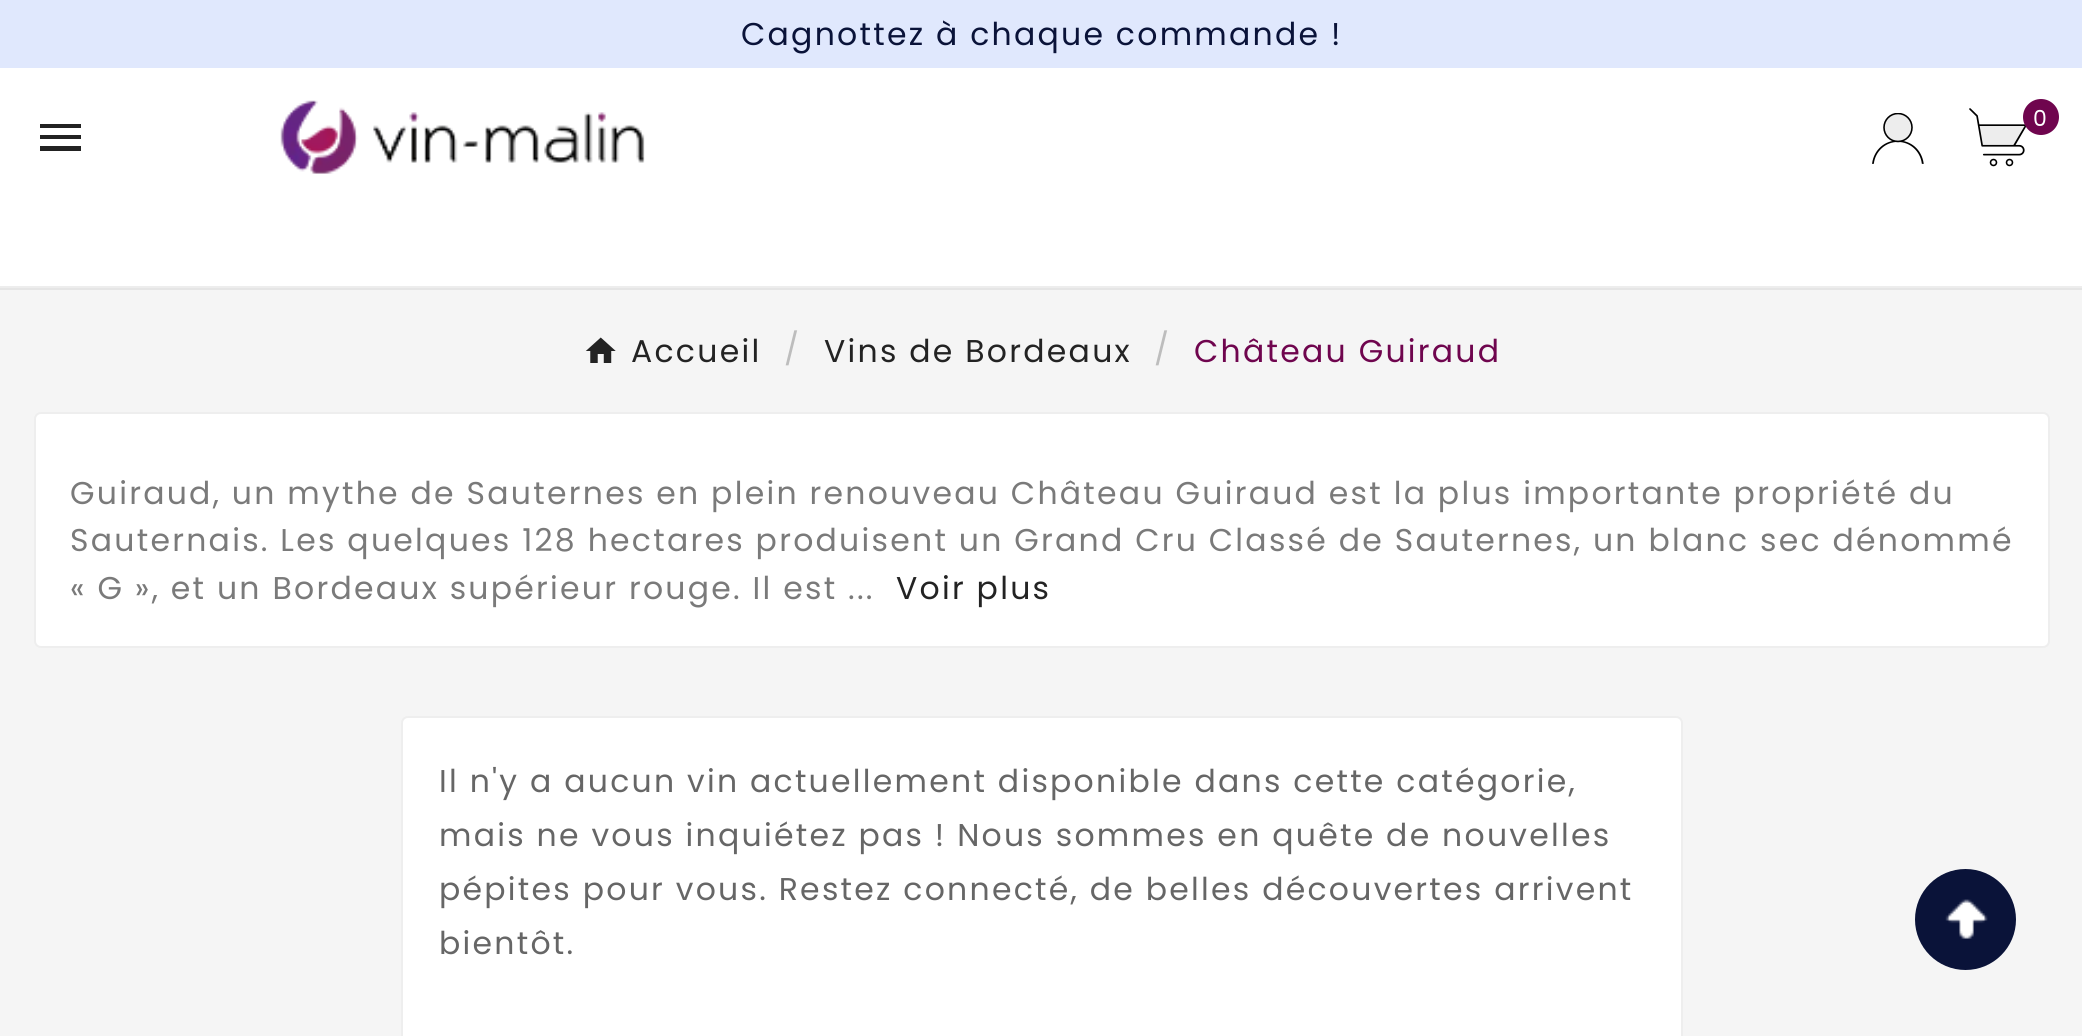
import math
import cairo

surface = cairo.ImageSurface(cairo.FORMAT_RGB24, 2082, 1036)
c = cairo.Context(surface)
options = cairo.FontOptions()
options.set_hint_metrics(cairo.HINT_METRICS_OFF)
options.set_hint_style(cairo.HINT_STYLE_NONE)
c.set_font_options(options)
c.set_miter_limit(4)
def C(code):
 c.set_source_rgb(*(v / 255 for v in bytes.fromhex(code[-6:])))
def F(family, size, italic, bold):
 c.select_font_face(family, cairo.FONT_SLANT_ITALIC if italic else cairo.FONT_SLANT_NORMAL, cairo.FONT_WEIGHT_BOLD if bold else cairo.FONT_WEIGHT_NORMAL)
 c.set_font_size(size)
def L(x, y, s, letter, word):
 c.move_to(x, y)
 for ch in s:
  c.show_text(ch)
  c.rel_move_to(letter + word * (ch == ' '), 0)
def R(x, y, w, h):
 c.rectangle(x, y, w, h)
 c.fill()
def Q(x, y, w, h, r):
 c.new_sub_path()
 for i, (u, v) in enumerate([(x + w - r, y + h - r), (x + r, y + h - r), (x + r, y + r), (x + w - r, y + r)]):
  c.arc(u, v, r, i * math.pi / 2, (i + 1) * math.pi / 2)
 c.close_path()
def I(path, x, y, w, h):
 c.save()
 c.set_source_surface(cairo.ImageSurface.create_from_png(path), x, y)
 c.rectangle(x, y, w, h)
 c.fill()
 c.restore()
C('f5f5f5')
c.paint()
C('ffffff')
R(0,68,2082,218)
C('e5e5e5')
R(0,288,2082,2)
C('e0e8fd')
R(0,0,2082,68)
F('Poppins',31.5,0,0)
C('0a1339')
L(741,45,'Cagnottez à chaque commande !',2.25,0)
C('ededed')
R(0,286,2082,2)
I('1.png',280,100,365,74)
I('2.png',1872,113,52,51)
I('3.png',1969,108,57,59)
C('6f054e')
c.arc(2041,117,18,0,2 * math.pi)
c.fill()
F('Poppins',22,0,0)
C('ffffff')
L(2033,126,'0',2.25,0)
C('222222')
c.new_path()
c.move_to(40,124)
c.line_to(81,124)
c.line_to(81,128)
c.line_to(40,128)
c.close_path()
c.move_to(40,139)
c.line_to(40,135)
c.line_to(81,135)
c.line_to(81,139)
c.close_path()
c.move_to(40,151)
c.line_to(40,146)
c.line_to(81,146)
c.line_to(81,151)
c.close_path()
c.fill()
I('4.png',585,337,31,26)
F('Poppins',31.5,0,0)
C('232323')
L(631,362,'Accueil',2.25,0)
C('bdbdbd')
L(784,360,'/',2.25,0)
C('232323')
L(824,362,'Vins de Bordeaux',2.25,0)
C('bdbdbd')
L(1154,360,'/',2.25,0)
C('6f054e')
L(1194,362,'Château Guiraud',2.25,0)
C('ffffff')
Q(34,412,2016,236,7)
c.fill()
Q(35,413,2014,234,6)
c.set_source_rgba(0,0,0,0.07)
c.stroke()
C('7a7a7a')
L(70,504,'Guiraud, un mythe de Sauternes en plein renouveau Château Guiraud est la plus importante propriété du',2.25,0)
L(70,551,'Sauternais. Les quelques 128 hectares produisent un Grand Cru Classé de Sauternes, un blanc sec dénommé',2.25,0)
L(70,599,'« G », et un Bordeaux supérieur rouge. Il est ...',2.25,0)
C('232323')
L(896,599,'Voir plus',2.25,0)
C('ffffff')
Q(401,716,1282,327,7)
c.fill()
Q(402,717,1280,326,6)
c.set_source_rgba(0,0,0,0.07)
c.stroke()
C('666666')
L(439,792,'Il n\'y a aucun vin actuellement disponible dans cette catégorie,',2.25,0)
L(439,846,'mais ne vous inquiétez pas ! Nous sommes en quête de nouvelles',2.25,0)
L(439,900,'pépites pour vous. Restez connecté, de belles découvertes arrivent',2.25,0)
L(439,954,'bientôt.',2.25,0)
C('0a1339')
c.new_path()
c.arc(1965.5,919.5,50.5,0,2 * math.pi)
c.fill()
I('5.png',1945,899,43,40)
surface.write_to_png('o.png')
